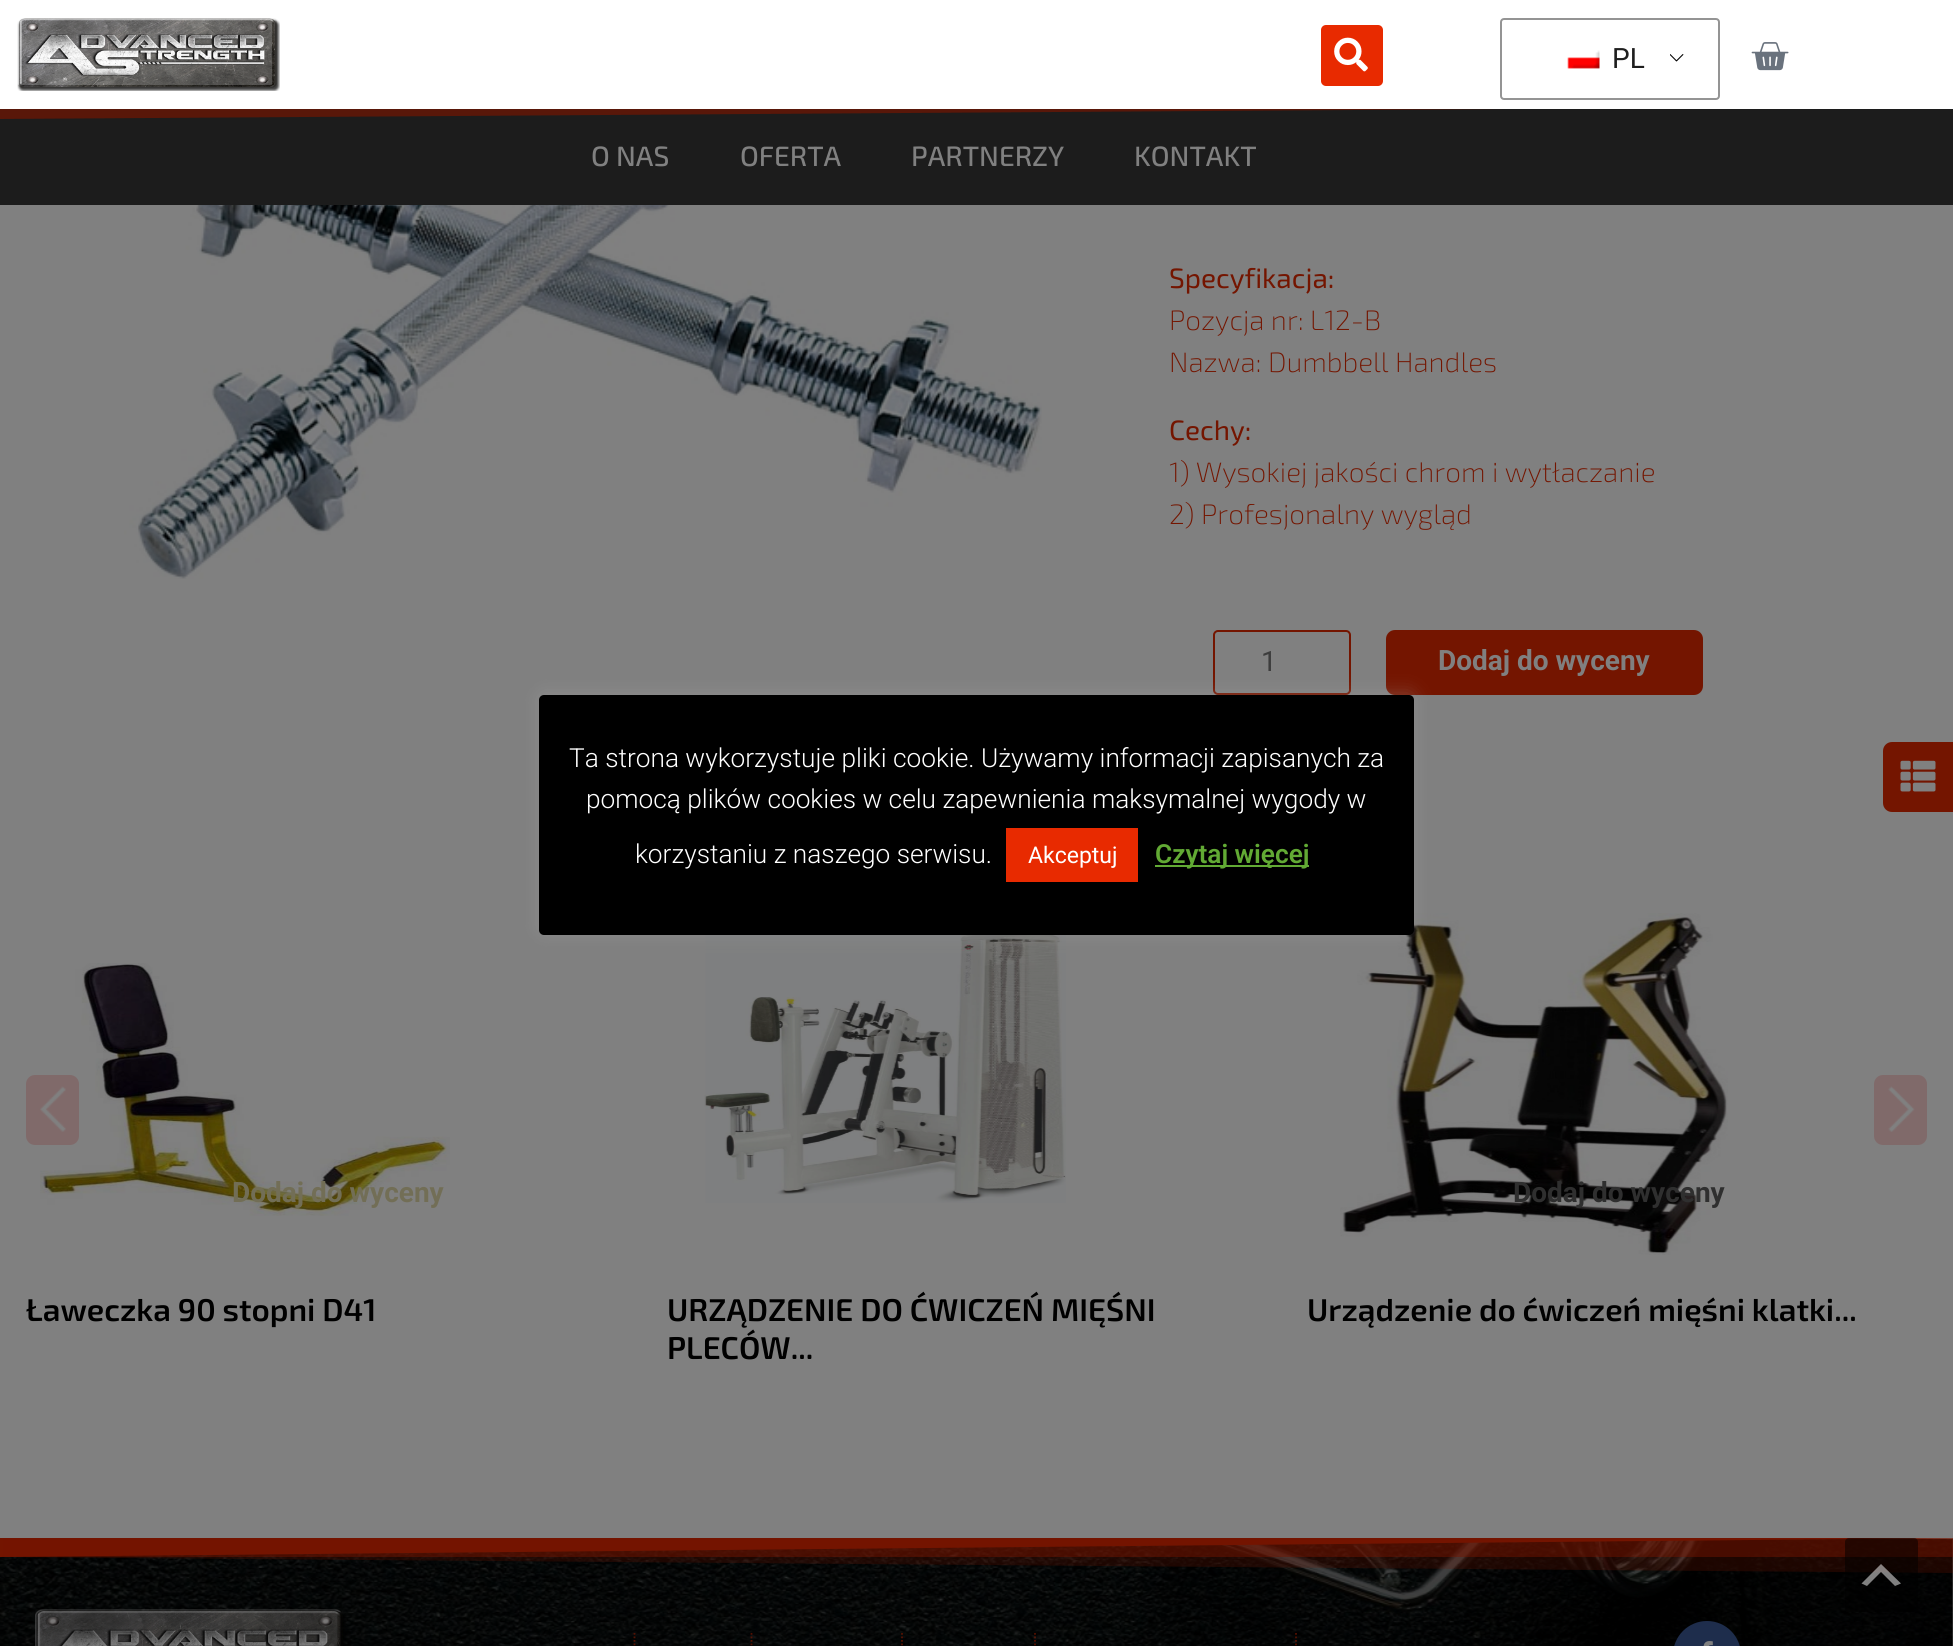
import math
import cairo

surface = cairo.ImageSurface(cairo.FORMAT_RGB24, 1953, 1646)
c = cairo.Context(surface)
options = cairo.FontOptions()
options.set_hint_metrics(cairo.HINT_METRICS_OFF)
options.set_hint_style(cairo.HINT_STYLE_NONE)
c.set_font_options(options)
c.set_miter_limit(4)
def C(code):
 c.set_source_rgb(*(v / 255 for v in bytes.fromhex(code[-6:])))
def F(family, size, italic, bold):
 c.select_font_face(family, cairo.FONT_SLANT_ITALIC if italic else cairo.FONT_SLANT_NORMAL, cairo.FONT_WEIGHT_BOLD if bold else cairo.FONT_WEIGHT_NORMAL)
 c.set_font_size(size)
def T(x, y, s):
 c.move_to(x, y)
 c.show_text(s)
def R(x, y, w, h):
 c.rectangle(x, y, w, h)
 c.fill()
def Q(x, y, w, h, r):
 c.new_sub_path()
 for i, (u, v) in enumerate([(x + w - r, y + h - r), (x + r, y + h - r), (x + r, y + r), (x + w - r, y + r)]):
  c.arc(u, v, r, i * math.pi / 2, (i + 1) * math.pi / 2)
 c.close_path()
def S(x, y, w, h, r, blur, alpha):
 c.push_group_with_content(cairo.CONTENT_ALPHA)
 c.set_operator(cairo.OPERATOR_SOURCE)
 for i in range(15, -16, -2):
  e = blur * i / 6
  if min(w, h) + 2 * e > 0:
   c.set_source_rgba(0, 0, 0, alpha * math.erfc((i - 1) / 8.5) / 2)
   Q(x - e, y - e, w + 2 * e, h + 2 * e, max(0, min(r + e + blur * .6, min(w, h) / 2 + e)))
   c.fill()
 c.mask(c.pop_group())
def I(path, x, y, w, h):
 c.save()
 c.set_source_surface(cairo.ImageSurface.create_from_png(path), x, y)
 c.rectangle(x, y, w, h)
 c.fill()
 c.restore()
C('808080')
c.paint()
C('1c1c1c')
R(0,109,1953,96)
c.set_source_rgba(0.455,0.082,0,0.69)
c.new_path()
c.move_to(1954,106)
c.line_to(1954,105)
c.line_to(-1,105)
c.line_to(-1,119)
c.close_path()
c.fill()
C('ffffff')
R(0,0,1953,109)
I('1.png',17,18,263,73)
C('e82a00')
Q(1321,25,62,61,5)
c.fill()
I('2.png',1334,37,34,35)
I('3.png',1670,54,14,8)
Q(1501,19,218,80,3)
C('949494')
c.stroke()
I('4.png',1567,50,33,19)
F('Roboto',28,0,0)
C('1e1e1e')
T(1612,68,'PL')
I('5.png',1751,42,38,29)
F('Exo 2 Medium',28,0,0)
C('808080')
T(591,166,'O NAS')
T(740,166,'OFERTA')
T(911,166,'PARTNERZY')
T(1134,166,'KONTAKT')
I('6.png',124,205,918,374)
F('Exo 2',28,0,0)
C('741500')
T(1169,288,'Specyfikacja:')
F('Exo 2 ExtraLight',28,0,0)
T(1169,330,'Pozycja nr: L12-B')
T(1169,372,'Nazwa: Dumbbell Handles')
F('Exo 2',28,0,0)
T(1169,440,'Cechy:')
F('Exo 2 ExtraLight',28,0,0)
T(1169,482,'1) Wysokiej jakości chrom i wytłaczanie')
T(1169,524,'2) Profesjonalny wygląd')
Q(1214,631,136,63,4)
c.stroke()
F('Roboto',28,0,0)
C('3d3d3d')
T(1261,671,'1')
C('741500')
Q(1386,630,317,65,9)
c.fill()
F('Roboto',28,0,1)
C('808080')
T(1438,670,'Dodaj do wyceny')
C('741500')
c.new_path()
c.move_to(1892,742)
c.line_to(1953,742)
c.line_to(1953,812)
c.line_to(1892,812)
c.curve_to(1887,812,1883,808,1883,803)
c.line_to(1883,751)
c.curve_to(1883,746,1887,742,1892,742)
c.close_path()
c.fill()
I('7.png',1900,760,36,32)
I('10.png',40,963,410,253)
C('806a6a')
Q(26,1075,53,70,9)
c.fill()
I('8.png',40,1086,26,46)
Q(1874,1075,53,70,9)
c.fill()
I('9.png',1888,1086,27,46)
C('726e56')
T(232,1202,'Dodaj do wyceny')
F('Exo 2 SemiBold',31.5,0,0)
C('000000')
T(26,1321,'Ławeczka 90 stopni D41')
I('11.png',704,935,362,268)
T(667,1321,'URZĄDZENIE DO ĆWICZEŃ MIĘŚNI')
T(667,1359,'PLECÓW...')
I('12.png',1340,913,388,342)
F('Roboto',28,0,1)
C('2f2f2f')
T(1513,1202,'Dodaj do wyceny')
F('Exo 2 SemiBold',31.5,0,0)
C('000000')
T(1307,1321,'Urządzenie do ćwiczeń mięśni klatki...')
C('acabab')
S(539,693,875,240,5,9,.3)
C('000000')
Q(539,695,875,240,5)
c.fill()
F('Roboto Light',26.25,0,0)
C('ffffff')
T(569,767,'Ta strona wykorzystuje pliki cookie. Używamy informacji zapisanych za')
T(586,808,'pomocą plików cookies w celu zapewnienia maksymalnej wygody w')
T(635,863,'korzystaniu z naszego serwisu.')
C('e82a00')
R(1006,828,132,54)
F('Roboto',23,0,0)
C('ffffff')
T(1028,863,'Akceptuj')
C('62aa34')
R(1155,865,154,2)
F('Roboto SemiBold',26.25,0,0)
T(1155,863,'Czytaj więcej')
I('13.png',0,1539,1953,107)
C('741500')
c.new_path()
c.move_to(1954,1538)
c.line_to(-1,1538)
c.line_to(-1,1557)
c.close_path()
c.fill()
c.set_source_rgba(0.455,0.082,0,0.5)
R(3,1538,1950,19)
c.set_source_rgba(0.455,0.082,0,0.25)
c.new_path()
c.move_to(-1,1538)
c.line_to(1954,1538)
c.line_to(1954,1573)
c.line_to(-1,1557)
c.close_path()
c.fill()
I('14.png',35,1609,311,37)
c.new_path()
c.move_to(634.5,1633)
c.line_to(634.5,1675)
c.set_source_rgba(0.455,0.082,0,0.72)
c.set_line_width(1.8)
c.set_dash([1.75,1.75])
c.stroke()
c.new_path()
c.move_to(751.5,1633)
c.line_to(751.5,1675)
c.stroke()
c.new_path()
c.move_to(902,1633)
c.line_to(902,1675)
c.stroke()
c.new_path()
c.move_to(1035,1633)
c.line_to(1035,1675)
c.stroke()
c.new_path()
c.move_to(1296,1633)
c.line_to(1296,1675)
c.stroke()
C('1e2d4c')
Q(1673,1621,68,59,34)
c.fill()
I('15.png',1703,1641,10,5)
c.set_source_rgba(0,0,0,0.5)
Q(1845,1538,73,74,4)
c.fill()
c.set_source_rgba(1,1,1,0.5)
c.new_path()
c.move_to(1895,1586)
c.line_to(1881,1572)
c.line_to(1867,1586)
c.line_to(1861.5,1583.5)
c.line_to(1881,1564)
c.line_to(1901,1583.5)
c.close_path()
c.fill()
surface.write_to_png('o.png')
